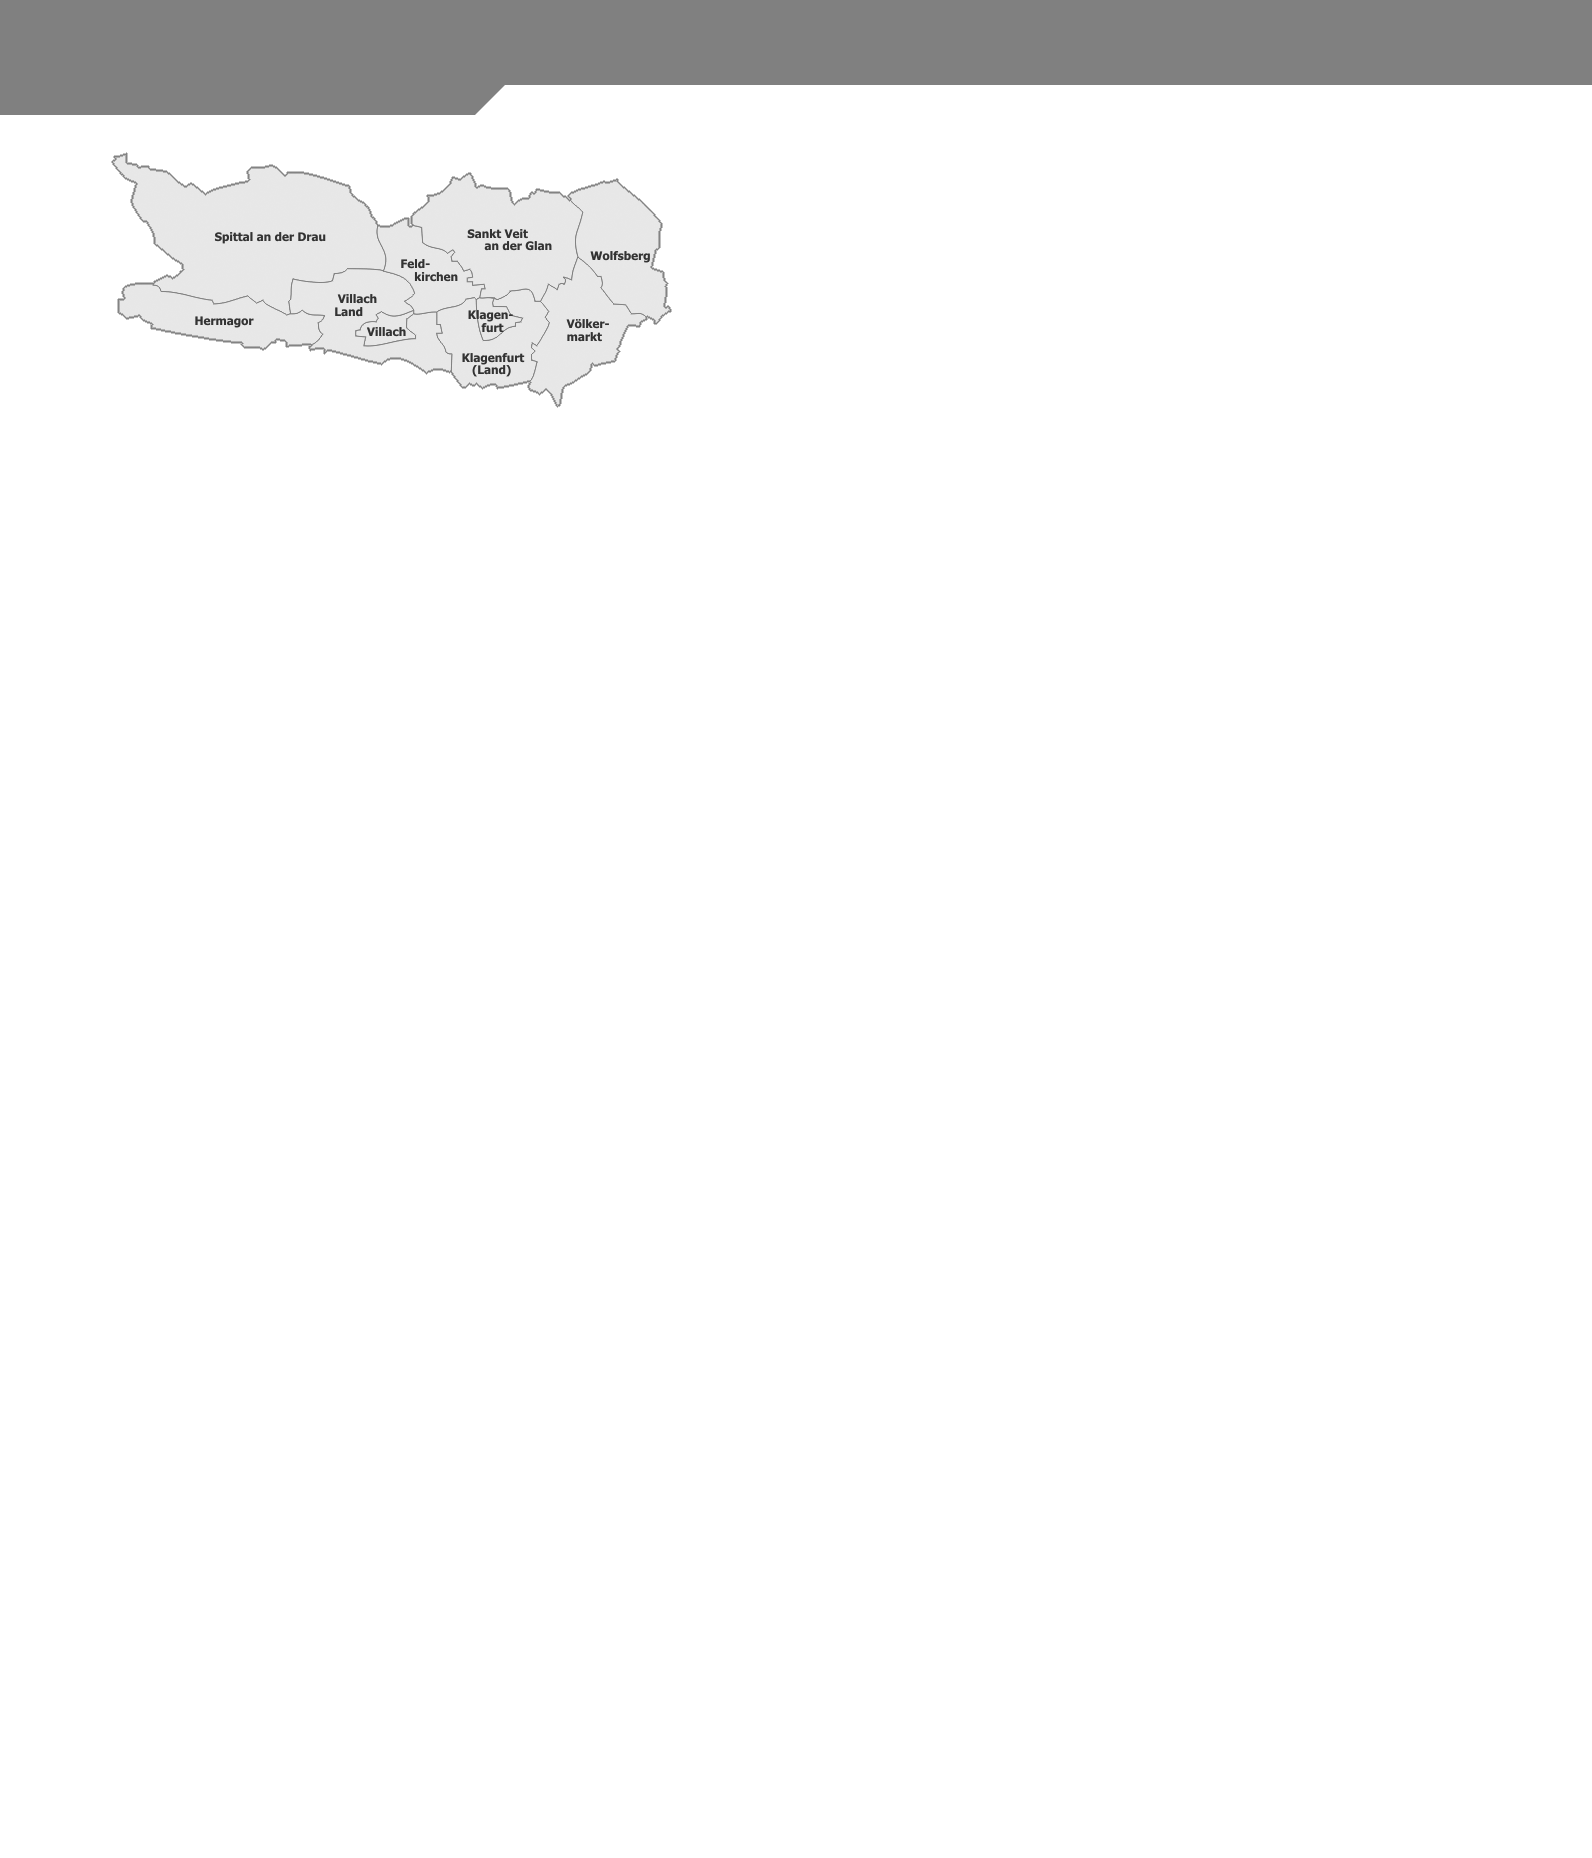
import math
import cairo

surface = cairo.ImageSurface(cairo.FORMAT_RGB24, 1592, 1858)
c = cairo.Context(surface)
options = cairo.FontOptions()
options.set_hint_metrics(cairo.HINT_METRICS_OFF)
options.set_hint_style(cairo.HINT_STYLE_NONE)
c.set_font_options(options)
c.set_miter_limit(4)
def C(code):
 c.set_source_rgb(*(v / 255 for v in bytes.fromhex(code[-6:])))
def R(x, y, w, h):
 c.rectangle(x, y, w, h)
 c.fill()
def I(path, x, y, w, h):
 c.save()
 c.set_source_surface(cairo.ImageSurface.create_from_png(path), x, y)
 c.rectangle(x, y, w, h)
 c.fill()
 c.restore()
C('ffffff')
c.paint()
C('808080')
R(0,0,475,115)
c.new_path()
c.move_to(475,85)
c.line_to(505,85)
c.line_to(475,115)
c.close_path()
c.fill()
R(475,0,1117,85)
I('1.png',111,152,561,256)
surface.write_to_png('o.png')
